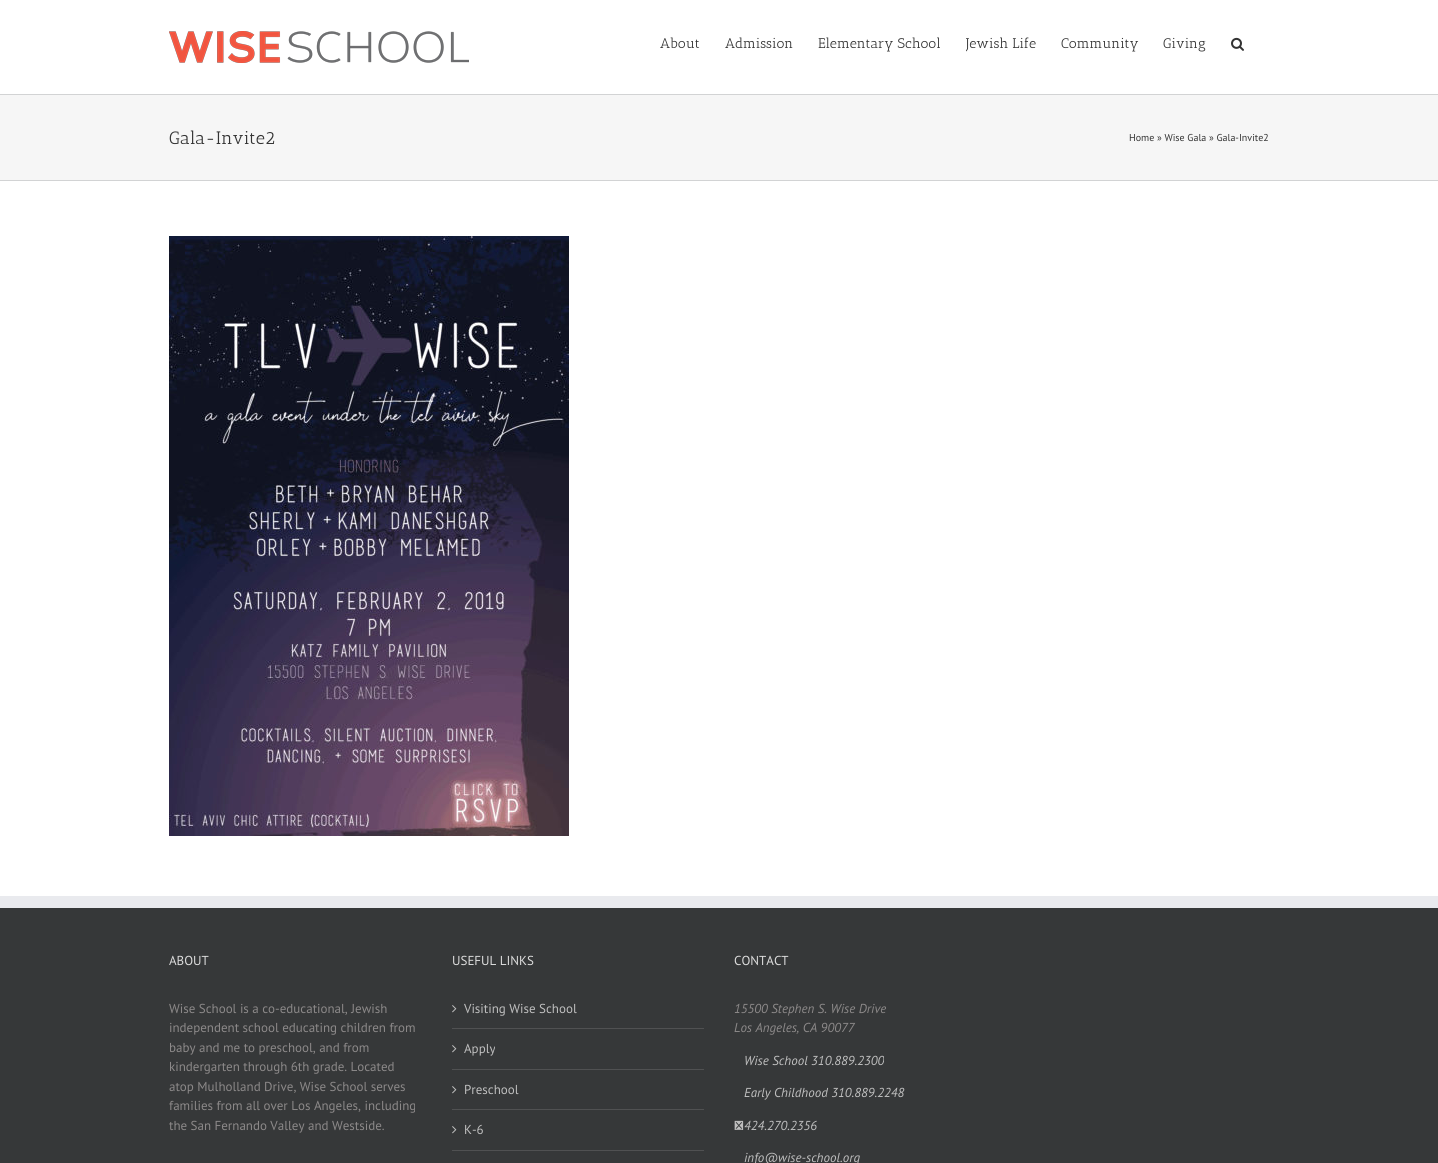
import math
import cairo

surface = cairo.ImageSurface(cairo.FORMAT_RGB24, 1438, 1163)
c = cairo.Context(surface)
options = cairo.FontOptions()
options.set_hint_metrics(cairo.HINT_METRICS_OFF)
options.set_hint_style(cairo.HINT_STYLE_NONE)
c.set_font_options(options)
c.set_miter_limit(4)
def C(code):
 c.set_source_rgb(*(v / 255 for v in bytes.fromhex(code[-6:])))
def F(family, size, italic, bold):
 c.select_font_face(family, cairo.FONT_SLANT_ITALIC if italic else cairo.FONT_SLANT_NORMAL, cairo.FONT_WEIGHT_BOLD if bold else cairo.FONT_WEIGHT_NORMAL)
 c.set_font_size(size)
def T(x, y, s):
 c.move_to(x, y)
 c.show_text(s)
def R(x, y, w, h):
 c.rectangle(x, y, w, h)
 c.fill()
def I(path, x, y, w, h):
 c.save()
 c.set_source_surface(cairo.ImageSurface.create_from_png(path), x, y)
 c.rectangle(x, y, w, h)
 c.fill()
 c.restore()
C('ffffff')
c.paint()
I('1.png',169,31,300,32)
F('Antic Slab',14,0,0)
C('333333')
T(660,48,'About')
T(725,48,'Admission')
T(818,48,'Elementary School')
c.save()
c.rectangle(966,0,95,84)
c.clip()
T(966,48,'Jewish Life')
c.restore()
T(1061,48,'Community')
T(1163,48,'Giving')
I('2.png',1231,37,13,14)
C('f6f6f6')
R(0,95,1438,85)
C('d2d3d4')
R(0,94,1438,1)
R(0,180,1438,1)
F('Antic Slab',18,0,0)
C('333333')
T(169,144,'Gala-Invite2')
F('PT Sans',10,0,0)
T(1129,141,'Home » Wise Gala » Gala-Invite2')
I('3.png',169,236,400,600)
C('363839')
R(0,908,1438,255)
C('e9eaee')
R(0,896,1438,12)
F('PT Sans',13,0,0)
C('dddddd')
T(169,965,'ABOUT')
C('8c8989')
T(169,1013,'Wise School is a co-educational, Jewish')
T(169,1032,'independent school educating children from')
T(169,1052,'baby and me to preschool, and from')
T(169,1071,'kindergarten through 6th grade. Located')
T(169,1091,'atop Mulholland Drive, Wise School serves')
T(169,1110,'families from all over Los Angeles, including')
T(169,1130,'the San Fernando Valley and Westside.')
C('dddddd')
T(452,965,'USEFUL LINKS')
C('505152')
R(452,1028,252,1)
I('4.png',452,1005,5,8)
C('bfbfbf')
T(464,1013,'Visiting Wise School')
C('505152')
R(452,1069,252,1)
I('4.png',452,1045,5,8)
C('bfbfbf')
T(464,1053,'Apply')
C('505152')
R(452,1109,252,1)
I('4.png',452,1086,5,8)
C('bfbfbf')
T(464,1094,'Preschool')
C('505152')
R(452,1150,252,1)
I('4.png',452,1126,5,8)
C('bfbfbf')
T(464,1134,'K-6')
C('dddddd')
T(734,965,'CONTACT')
F('PT Sans',13,1,0)
C('8c8989')
T(734,1013,'15500 Stephen S. Wise Drive')
T(734,1032,'Los Angeles, CA 90077')
C('bfbfbf')
T(744,1065,'Wise School 310.889.2300')
T(744,1097,'Early Childhood 310.889.2248')
I('5.png',734,1120,10,10)
T(744,1130,'424.270.2356')
T(744,1162,'info@wise-school.org')
surface.write_to_png('o.png')
